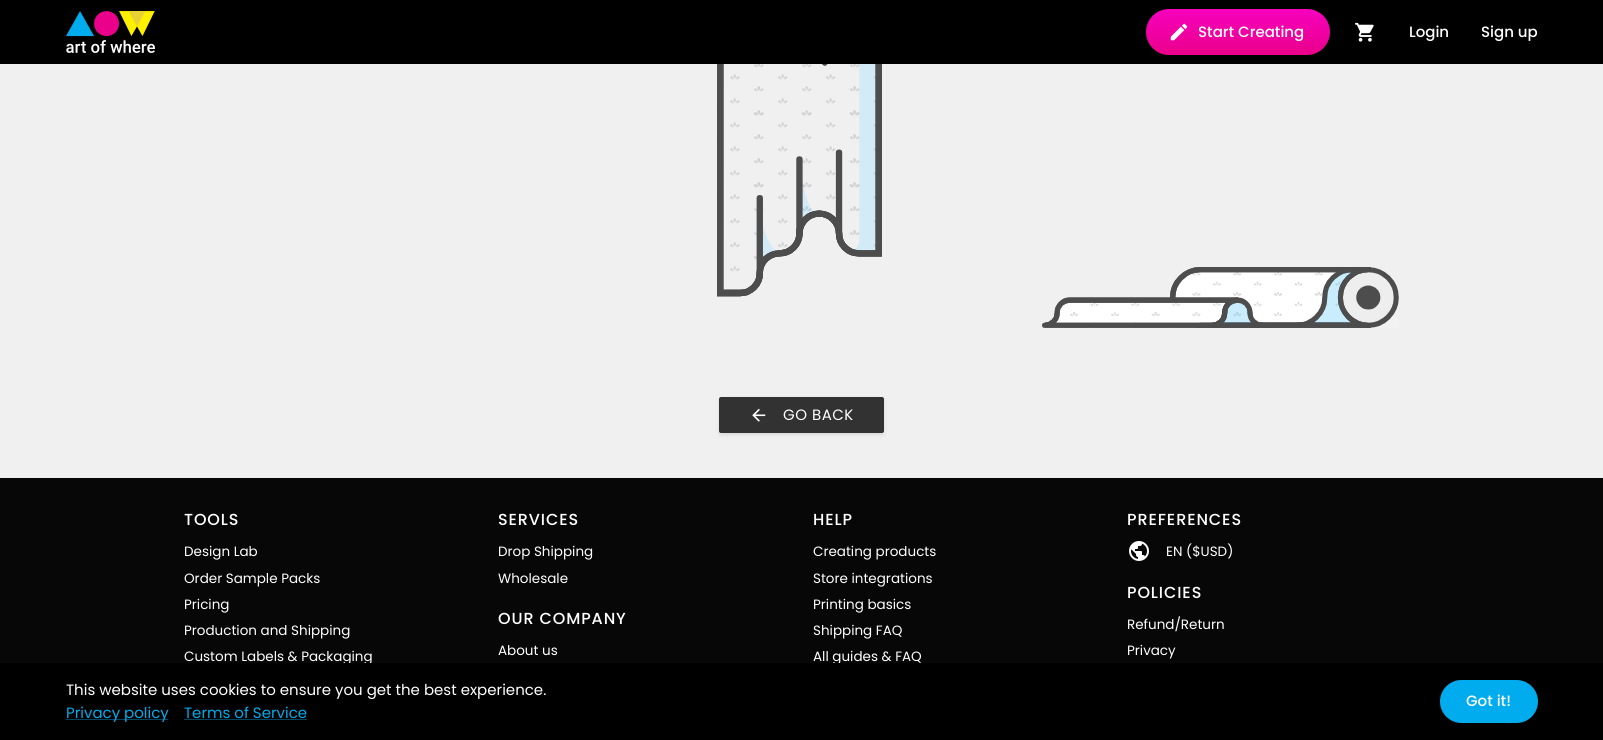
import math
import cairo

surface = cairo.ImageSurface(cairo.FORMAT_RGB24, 1603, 740)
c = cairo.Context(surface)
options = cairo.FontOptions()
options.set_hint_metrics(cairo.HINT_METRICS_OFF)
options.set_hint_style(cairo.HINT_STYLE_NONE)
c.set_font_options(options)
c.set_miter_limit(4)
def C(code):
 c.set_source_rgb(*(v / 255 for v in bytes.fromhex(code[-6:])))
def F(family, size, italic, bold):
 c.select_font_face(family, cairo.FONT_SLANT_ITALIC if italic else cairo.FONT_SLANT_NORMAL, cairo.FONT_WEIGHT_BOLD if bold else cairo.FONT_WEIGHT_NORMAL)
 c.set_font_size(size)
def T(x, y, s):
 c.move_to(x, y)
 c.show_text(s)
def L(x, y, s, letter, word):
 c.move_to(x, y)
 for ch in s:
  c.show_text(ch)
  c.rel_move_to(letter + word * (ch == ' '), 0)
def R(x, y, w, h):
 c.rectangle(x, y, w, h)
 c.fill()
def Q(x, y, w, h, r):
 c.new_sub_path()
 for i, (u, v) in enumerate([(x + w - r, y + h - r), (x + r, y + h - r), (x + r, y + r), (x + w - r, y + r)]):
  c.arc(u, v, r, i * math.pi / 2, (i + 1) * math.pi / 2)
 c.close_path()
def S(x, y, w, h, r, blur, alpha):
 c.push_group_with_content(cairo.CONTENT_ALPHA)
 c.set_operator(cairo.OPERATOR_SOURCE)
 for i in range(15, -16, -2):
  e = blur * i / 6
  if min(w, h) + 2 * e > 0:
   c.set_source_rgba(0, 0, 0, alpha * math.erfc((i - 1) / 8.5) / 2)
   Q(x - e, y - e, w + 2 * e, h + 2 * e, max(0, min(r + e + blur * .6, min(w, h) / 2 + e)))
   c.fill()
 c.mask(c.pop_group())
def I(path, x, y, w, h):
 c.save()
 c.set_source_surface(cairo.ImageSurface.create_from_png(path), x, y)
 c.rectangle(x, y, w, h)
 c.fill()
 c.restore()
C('f0f0f0')
c.paint()
C('000000')
R(0,0,1603,64)
I('1.png',66,11,89,42)
gradient = cairo.LinearGradient(1238,9,1238,55)
gradient.add_color_stop_rgba(0,0.965,0,0.745,1)
gradient.add_color_stop_rgba(1,0.918,0,0.541,1)
c.set_source(gradient)
Q(1146,9,184,46,23)
c.fill()
I('2.png',1170,23,18,18)
F('Poppins Medium',15,0,0)
C('ffffff')
T(1198,37,'Start Creating')
I('3.png',1355,22,19,20)
T(1409,37,'Login')
T(1481,37,'Sign up')
C('080707')
R(0,478,1603,185)
F('Poppins',13.5,0,0)
C('ffffff')
T(184,661,'Custom Labels & Packaging')
T(813,661,'All guides & FAQ')
C('000000')
R(0,663,1603,77)
F('Poppins',15,0,0)
C('ffffff')
T(66,695,'This website uses cookies to ensure you get the best experience.')
C('00455f')
R(66,719,102,1)
C('00aced')
T(66,718,'Privacy policy')
T(184,718,'Terms of Service')
C('00455f')
R(184,719,123,1)
C('00aced')
Q(1440,680,98,43,21.5)
c.fill()
F('Poppins Medium',15,0,0)
C('ffffff')
T(1466,706,'Got it!')
I('4.png',1042,267,357,61)
I('5.png',717,64,165,233)
C('000000')
S(719,399,165,36,2,2,.1)
C('323232')
Q(719,397,165,36,2)
c.fill()
I('6.png',752,408,14,14)
F('Poppins',15,0,0)
C('ffffff')
L(783,420,'GO BACK',.5,0)
F('Poppins Medium',16,0,0)
L(184,525,'TOOLS',.9,0)
F('Poppins',13.5,0,0)
T(184,556,'Design Lab')
T(184,583,'Order Sample Packs')
T(184,609,'Pricing')
T(184,635,'Production and Shipping')
F('Poppins Medium',16,0,0)
L(498,525,'SERVICES',.9,0)
F('Poppins',13.5,0,0)
T(498,556,'Drop Shipping')
T(498,583,'Wholesale')
F('Poppins Medium',16,0,0)
L(498,624,'OUR COMPANY',.9,0)
F('Poppins',13.5,0,0)
T(498,655,'About us')
F('Poppins Medium',16,0,0)
L(813,525,'HELP',.9,0)
F('Poppins',13.5,0,0)
T(813,556,'Creating products')
T(813,583,'Store integrations')
T(813,609,'Printing basics')
T(813,635,'Shipping FAQ')
F('Poppins Medium',16,0,0)
L(1127,525,'PREFERENCES',.9,0)
I('7.png',1129,541,20,20)
F('Poppins',13.5,0,0)
T(1166,556,'EN ($USD)')
F('Poppins Medium',16,0,0)
L(1127,598,'POLICIES',.9,0)
F('Poppins',13.5,0,0)
T(1127,629,'Refund/Return')
T(1127,655,'Privacy')
surface.write_to_png('o.png')
